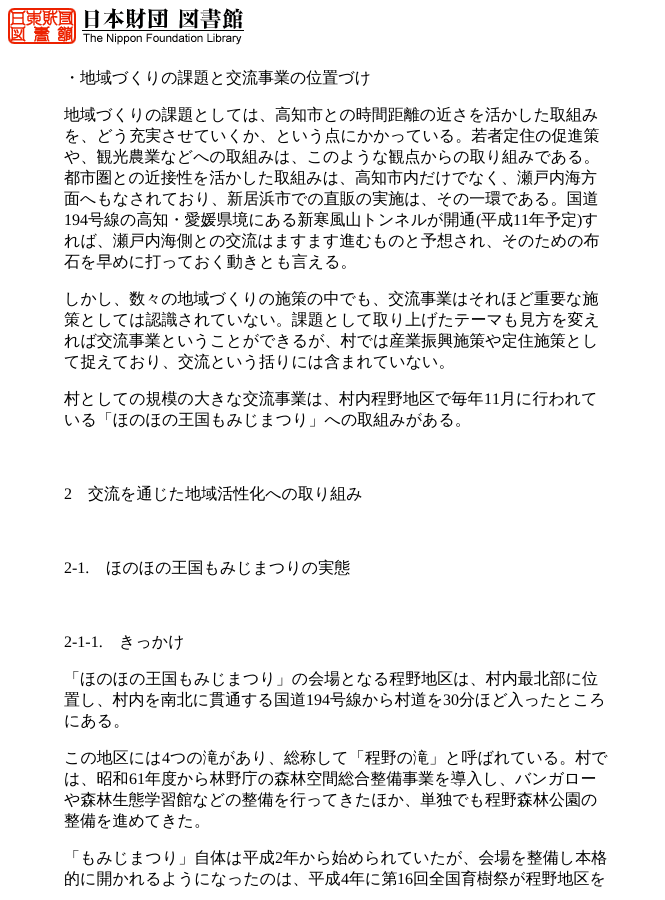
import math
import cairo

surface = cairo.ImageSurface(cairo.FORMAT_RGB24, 665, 900)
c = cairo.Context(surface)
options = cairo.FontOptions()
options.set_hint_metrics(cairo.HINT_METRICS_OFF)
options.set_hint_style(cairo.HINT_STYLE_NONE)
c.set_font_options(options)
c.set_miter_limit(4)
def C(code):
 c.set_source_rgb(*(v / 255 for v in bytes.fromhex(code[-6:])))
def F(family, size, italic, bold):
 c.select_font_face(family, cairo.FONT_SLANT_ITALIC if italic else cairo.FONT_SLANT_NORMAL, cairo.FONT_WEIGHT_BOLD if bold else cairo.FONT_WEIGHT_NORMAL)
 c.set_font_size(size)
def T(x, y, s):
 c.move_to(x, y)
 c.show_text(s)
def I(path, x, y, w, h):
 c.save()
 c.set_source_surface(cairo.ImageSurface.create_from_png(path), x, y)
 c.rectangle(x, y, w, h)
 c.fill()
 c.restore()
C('ffffff')
c.paint()
I('1.png',8,8,236,37)
F('WenQuanYi Zen Hei Medium',16,0,0)
C('000000')
T(64,83,'・地域づくりの課題と交流事業の位置づけ')
T(64,120,'地域づくりの課題としては、高知市との時間距離の近さを活かした取組み')
T(64,141,'を、どう充実させていくか、という点にかかっている。若者定住の促進策')
T(64,162,'や、観光農業などへの取組みは、このような観点からの取り組みである。')
T(64,183,'都市圏との近接性を活かした取組みは、高知市内だけでなく、瀬戸内海方')
T(64,204,'面へもなされており、新居浜市での直販の実施は、その一環である。国道')
F('Liberation Serif',16,0,0)
T(64,225,'194')
F('WenQuanYi Zen Hei Medium',16,0,0)
T(88,225,'号線の高知・愛媛県境にある新寒風山トンネルが開通')
F('Liberation Serif',16,0,0)
T(476,225,'(')
F('WenQuanYi Zen Hei Medium',16,0,0)
T(481,225,'平成')
F('Liberation Serif',16,0,0)
T(513,225,'11')
F('WenQuanYi Zen Hei Medium',16,0,0)
T(529,225,'年予定')
F('Liberation Serif',16,0,0)
T(577,225,')')
F('WenQuanYi Zen Hei Medium',16,0,0)
T(582,225,'す')
T(64,246,'れば、瀬戸内海側との交流はますます進むものと予想され、そのための布')
T(64,267,'石を早めに打っておく動きとも言える。')
T(64,304,'しかし、数々の地域づくりの施策の中でも、交流事業はそれほど重要な施')
T(64,325,'策としては認識されていない。課題として取り上げたテーマも見方を変え')
T(64,346,'れば交流事業ということができるが、村では産業振興施策や定住施策とし')
T(64,367,'て捉えており、交流という括りには含まれていない。')
T(64,404,'村としての規模の大きな交流事業は、村内程野地区で毎年')
F('Liberation Serif',16,0,0)
T(484,404,'11')
F('WenQuanYi Zen Hei Medium',16,0,0)
T(500,404,'月に行われて')
T(64,425,'いる「ほのほの王国もみじまつり」への取組みがある。')
F('Liberation Serif',16,0,0)
T(64,499,'2')
F('WenQuanYi Zen Hei Medium',16,0,0)
T(88,499,'交流を通じた地域活性化への取り組み')
F('Liberation Serif',16,0,0)
T(64,573,'2-1.')
F('WenQuanYi Zen Hei Medium',16,0,0)
T(106,573,'ほのほの王国もみじまつりの実態')
F('Liberation Serif',16,0,0)
T(64,647,'2-1-1.')
F('WenQuanYi Zen Hei Medium',16,0,0)
T(119,647,'きっかけ')
T(64,684,'「ほのほの王国もみじまつり」の会場となる程野地区は、村内最北部に位')
T(64,705,'置し、村内を南北に貫通する国道')
F('Liberation Serif',16,0,0)
T(306,705,'194')
F('WenQuanYi Zen Hei Medium',16,0,0)
T(330,705,'号線から村道を')
F('Liberation Serif',16,0,0)
T(443,705,'30')
F('WenQuanYi Zen Hei Medium',16,0,0)
T(459,705,'分ほど入ったところ')
T(64,726,'にある。')
T(64,763,'この地区には')
F('Liberation Serif',16,0,0)
T(162,763,'4')
F('WenQuanYi Zen Hei Medium',16,0,0)
T(170,763,'つの滝があり、総称して「程野の滝」と呼ばれている。村で')
T(64,784,'は、昭和')
F('Liberation Serif',16,0,0)
T(129,784,'61')
F('WenQuanYi Zen Hei Medium',16,0,0)
T(145,784,'年度から林野庁の森林空間総合整備事業を導入し、バンガロー')
T(64,805,'や森林生態学習館などの整備を行ってきたほか、単独でも程野森林公園の')
T(64,826,'整備を進めてきた。')
T(64,863,'「もみじまつり」自体は平成')
F('Liberation Serif',16,0,0)
T(275,863,'2')
F('WenQuanYi Zen Hei Medium',16,0,0)
T(283,863,'年から始められていたが、会場を整備し本格')
T(64,884,'的に開かれるようになったのは、平成')
F('Liberation Serif',16,0,0)
T(341,884,'4')
F('WenQuanYi Zen Hei Medium',16,0,0)
T(349,884,'年に第')
F('Liberation Serif',16,0,0)
T(397,884,'16')
F('WenQuanYi Zen Hei Medium',16,0,0)
T(413,884,'回全国育樹祭が程野地区を')
surface.write_to_png('o.png')
